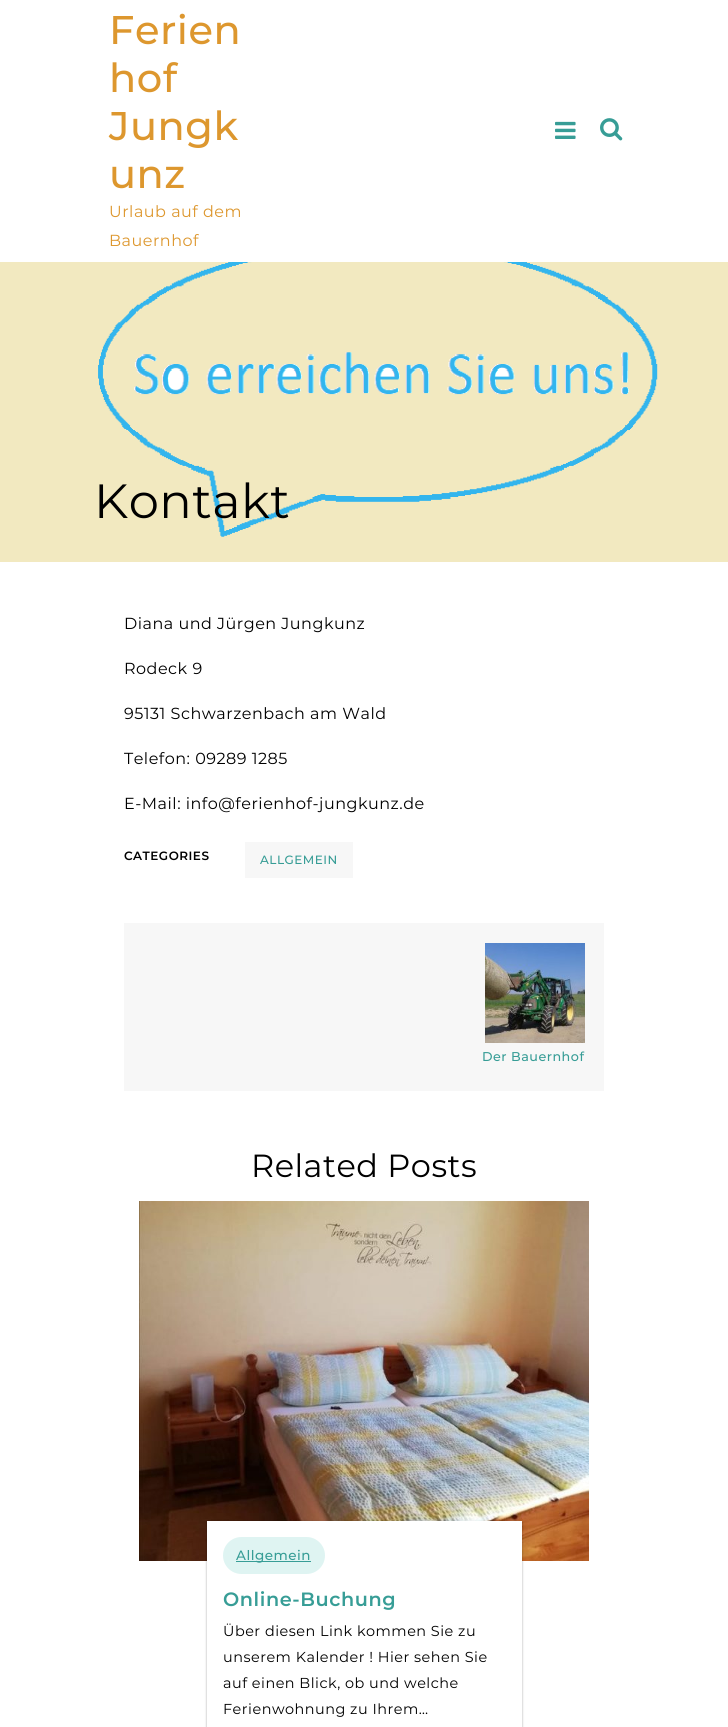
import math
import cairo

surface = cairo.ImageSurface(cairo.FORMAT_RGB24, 728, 1727)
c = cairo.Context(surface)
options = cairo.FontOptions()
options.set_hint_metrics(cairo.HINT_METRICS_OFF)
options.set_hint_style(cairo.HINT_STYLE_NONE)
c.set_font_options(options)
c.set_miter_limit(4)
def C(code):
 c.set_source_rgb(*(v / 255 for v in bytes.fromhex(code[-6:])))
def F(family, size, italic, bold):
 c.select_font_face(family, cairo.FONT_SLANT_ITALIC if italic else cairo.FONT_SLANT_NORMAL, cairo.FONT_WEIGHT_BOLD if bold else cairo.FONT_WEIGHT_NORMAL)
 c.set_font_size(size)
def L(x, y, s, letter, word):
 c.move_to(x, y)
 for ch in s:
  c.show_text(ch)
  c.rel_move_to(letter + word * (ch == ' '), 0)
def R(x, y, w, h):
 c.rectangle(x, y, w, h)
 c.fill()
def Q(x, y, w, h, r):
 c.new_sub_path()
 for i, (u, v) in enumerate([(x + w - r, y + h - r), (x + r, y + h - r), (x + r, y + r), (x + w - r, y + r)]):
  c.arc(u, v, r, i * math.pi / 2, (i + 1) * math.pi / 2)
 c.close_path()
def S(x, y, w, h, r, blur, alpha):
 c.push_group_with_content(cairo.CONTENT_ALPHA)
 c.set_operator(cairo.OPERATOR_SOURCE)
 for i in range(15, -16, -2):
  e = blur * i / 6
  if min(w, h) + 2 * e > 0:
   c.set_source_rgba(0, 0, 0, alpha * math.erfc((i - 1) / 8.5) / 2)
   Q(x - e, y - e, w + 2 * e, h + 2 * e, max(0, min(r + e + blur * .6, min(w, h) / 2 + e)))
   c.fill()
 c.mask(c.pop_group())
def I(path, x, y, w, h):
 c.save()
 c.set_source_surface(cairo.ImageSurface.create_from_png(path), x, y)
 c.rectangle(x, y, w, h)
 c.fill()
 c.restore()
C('ffffff')
c.paint()
F('Montserrat Medium',40,0,0)
C('dd972e')
L(109,44,'Ferien',.5,0)
L(109,92,'hof',.5,0)
L(109,140,'Jungk',.5,0)
L(109,188,'unz',.5,0)
F('Montserrat',16,0,0)
L(109,217,'Urlaub auf dem',.5,0)
L(109,246,'Bauernhof',.5,0)
I('1.png',555,121,21,18)
I('2.png',600,118,23,23)
I('3.png',0,262,728,300)
F('Montserrat',48,0,0)
C('000000')
L(94,518,'Kontakt',.5,0)
F('Montserrat',16,0,0)
L(124,629,'Diana und Jürgen Jungkunz',.5,0)
L(124,674,'Rodeck 9',.5,0)
L(124,719,'95131 Schwarzenbach am Wald',.5,0)
L(124,764,'Telefon: 09289 1285',.5,0)
L(124,809,'E-Mail: info@ferienhof-jungkunz.de',.5,0)
F('Montserrat SemiBold',12,0,0)
L(124,860,'CATEGORIES',.5,0)
C('f7f7f7')
R(245,842,108,36)
F('Montserrat Medium',12,0,0)
C('379d96')
L(260,864,'ALLGEMEIN',.5,0)
C('f7f7f7')
R(124,923,480,168)
I('4.png',485,943,100,100)
F('Montserrat Medium',12.75,0,0)
C('379d96')
L(482,1061,'Der Bauernhof',.5,0)
F('Montserrat',32,0,0)
C('000000')
L(251,1177,'Related Posts',.5,0)
I('5.png',139,1201,450,360)
C('000000')
S(207,1522,315,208,0,1,.24)
S(207,1522,315,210,0,1.5,.12)
C('ffffff')
R(207,1521,315,206)
C('dff4f2')
Q(223,1537,102,37,18.5)
c.fill()
C('379d96')
R(236,1561,75,1)
F('Montserrat Medium',13.5,0,0)
L(236,1560,'Allgemein',.5,0)
F('Montserrat SemiBold',19.25,0,0)
L(223,1606,'Online-Buchung',.6,0)
F('Montserrat',14.4,0,0)
C('000000')
L(223,1636,'Über diesen Link kommen Sie zu',.5,0)
L(223,1662,'unserem Kalender ! Hier sehen Sie',.5,0)
L(223,1688,'auf einen Blick, ob und welche',.5,0)
L(223,1714,'Ferienwohnung zu Ihrem…',.5,0)
surface.write_to_png('o.png')
